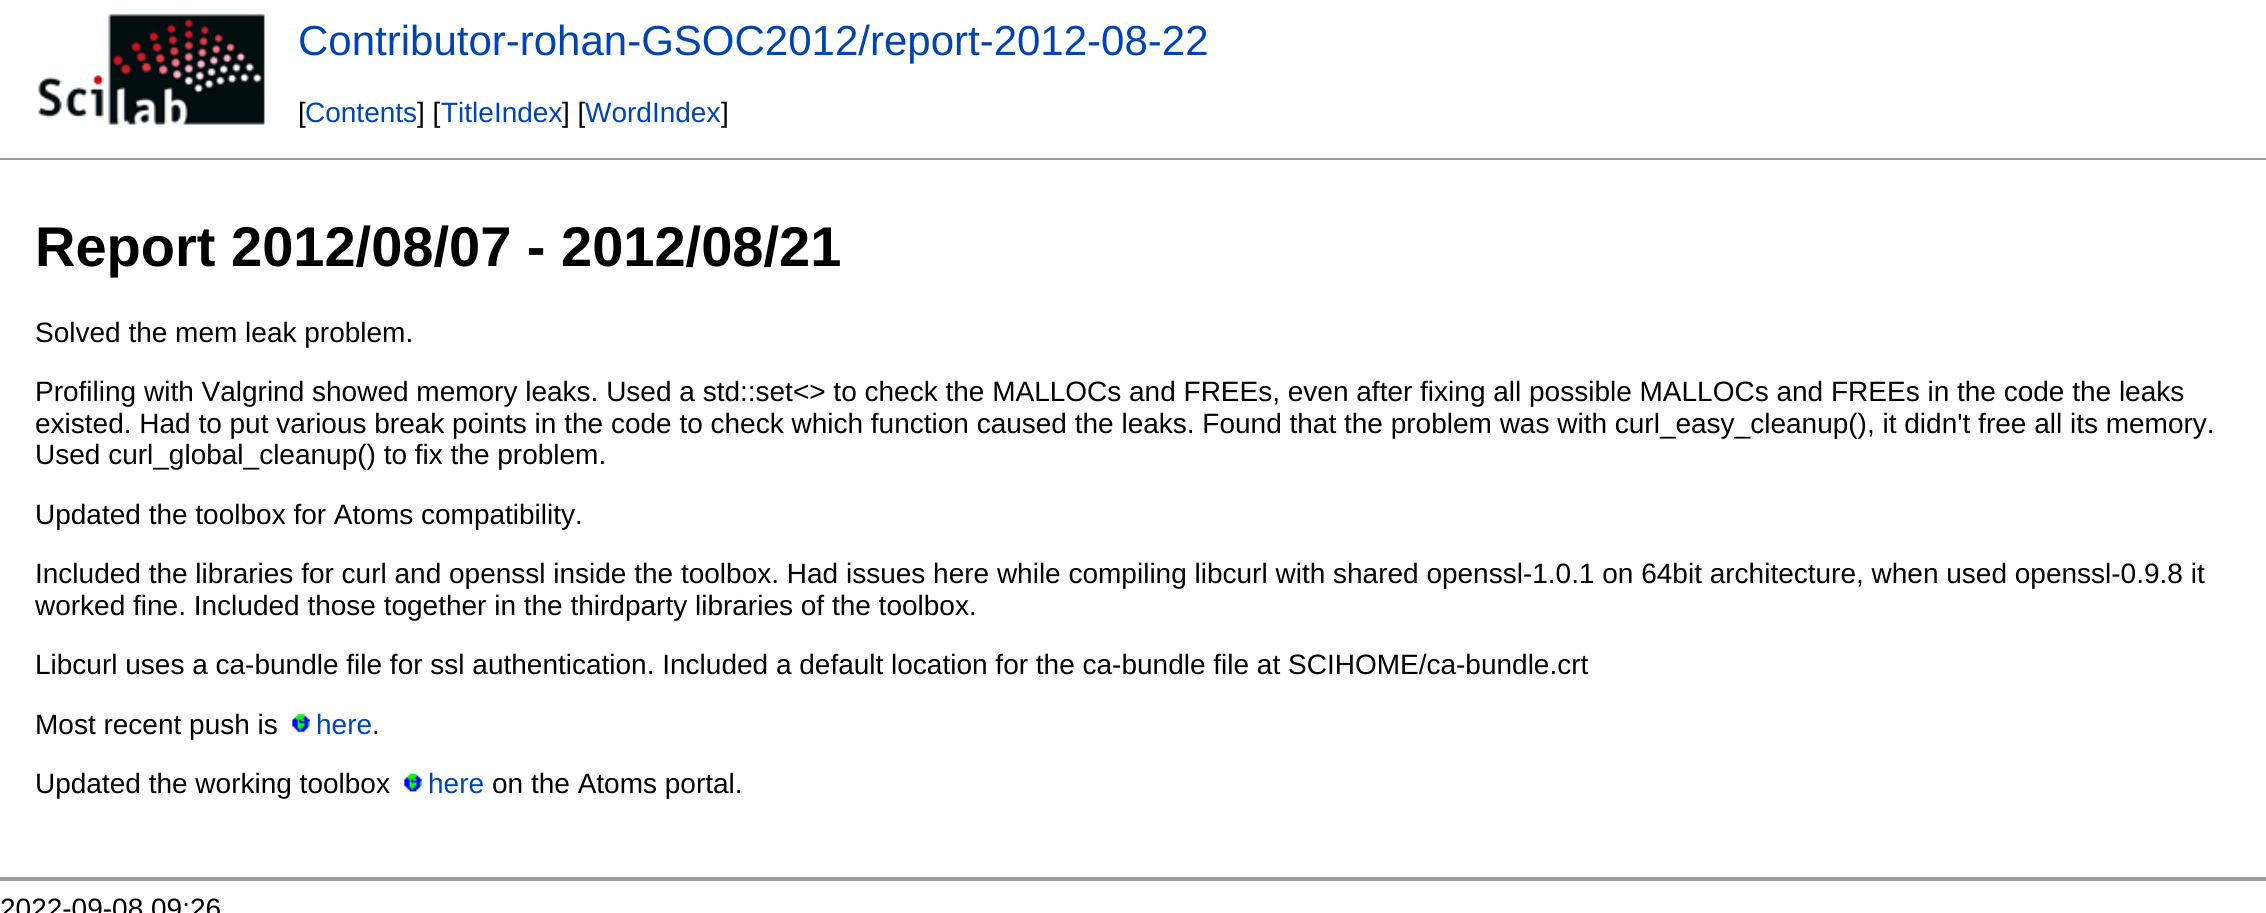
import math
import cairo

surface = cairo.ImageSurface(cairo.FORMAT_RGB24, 2266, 913)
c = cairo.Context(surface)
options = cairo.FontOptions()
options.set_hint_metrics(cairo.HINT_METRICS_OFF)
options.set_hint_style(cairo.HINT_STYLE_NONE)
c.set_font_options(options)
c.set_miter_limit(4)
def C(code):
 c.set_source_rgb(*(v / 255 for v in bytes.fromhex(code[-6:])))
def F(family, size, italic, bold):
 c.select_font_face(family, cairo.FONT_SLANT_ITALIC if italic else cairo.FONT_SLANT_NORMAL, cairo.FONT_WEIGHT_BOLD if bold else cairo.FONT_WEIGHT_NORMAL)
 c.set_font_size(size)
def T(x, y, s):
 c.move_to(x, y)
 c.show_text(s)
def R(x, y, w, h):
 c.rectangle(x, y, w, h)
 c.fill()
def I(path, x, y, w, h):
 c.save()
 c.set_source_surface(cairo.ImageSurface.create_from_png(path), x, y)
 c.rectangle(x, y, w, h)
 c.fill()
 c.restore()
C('ffffff')
c.paint()
I('1.png',38,13,227,112)
F('Liberation Sans',42,0,0)
C('0044b3')
T(298,55,'Contributor-rohan-GSOC2012/report-2012-08-22')
F('Liberation Sans',28,0,0)
C('000000')
T(298,122,'[')
C('0044b3')
T(305,122,'Contents')
C('000000')
T(417,122,'] [')
C('0044b3')
T(441,122,'TitleIndex')
C('000000')
T(562,122,'] [')
C('0044b3')
T(585,122,'WordIndex')
C('000000')
T(721,122,']')
C('9c9c9c')
R(0,158,2266,2)
F('Liberation Sans',56,0,1)
C('000000')
T(35,266,'Report 2012/08/07 - 2012/08/21')
F('Liberation Sans',28,0,0)
T(35,342,'Solved the mem leak problem.')
T(35,401,'Profiling with Valgrind showed memory leaks. Used a std::set<> to check the MALLOCs and FREEs, even after fixing all possible MALLOCs and FREEs in the code the leaks')
T(35,433,'existed. Had to put various break points in the code to check which function caused the leaks. Found that the problem was with curl_easy_cleanup(), it didn\'t free all its memory.')
T(35,464,'Used curl_global_cleanup() to fix the problem.')
T(35,524,'Updated the toolbox for Atoms compatibility.')
T(35,583,'Included the libraries for curl and openssl inside the toolbox. Had issues here while compiling libcurl with shared openssl-1.0.1 on 64bit architecture, when used openssl-0.9.8 it')
T(35,615,'worked fine. Included those together in the thirdparty libraries of the toolbox.')
T(35,674,'Libcurl uses a ca-bundle file for ssl authentication. Included a default location for the ca-bundle file at SCIHOME/ca-bundle.crt')
T(35,734,'Most recent push is')
I('2.png',291,714,19,19)
C('0044b3')
T(316,734,'here')
C('000000')
T(372,734,'.')
T(35,793,'Updated the working toolbox')
I('3.png',403,773,19,19)
C('0044b3')
T(428,793,'here')
C('000000')
T(492,793,'on the Atoms portal.')
C('9c9c9c')
R(0,877,2266,4)
C('000000')
T(0,918,'2022-09-08 09:26')
surface.write_to_png('o.png')
